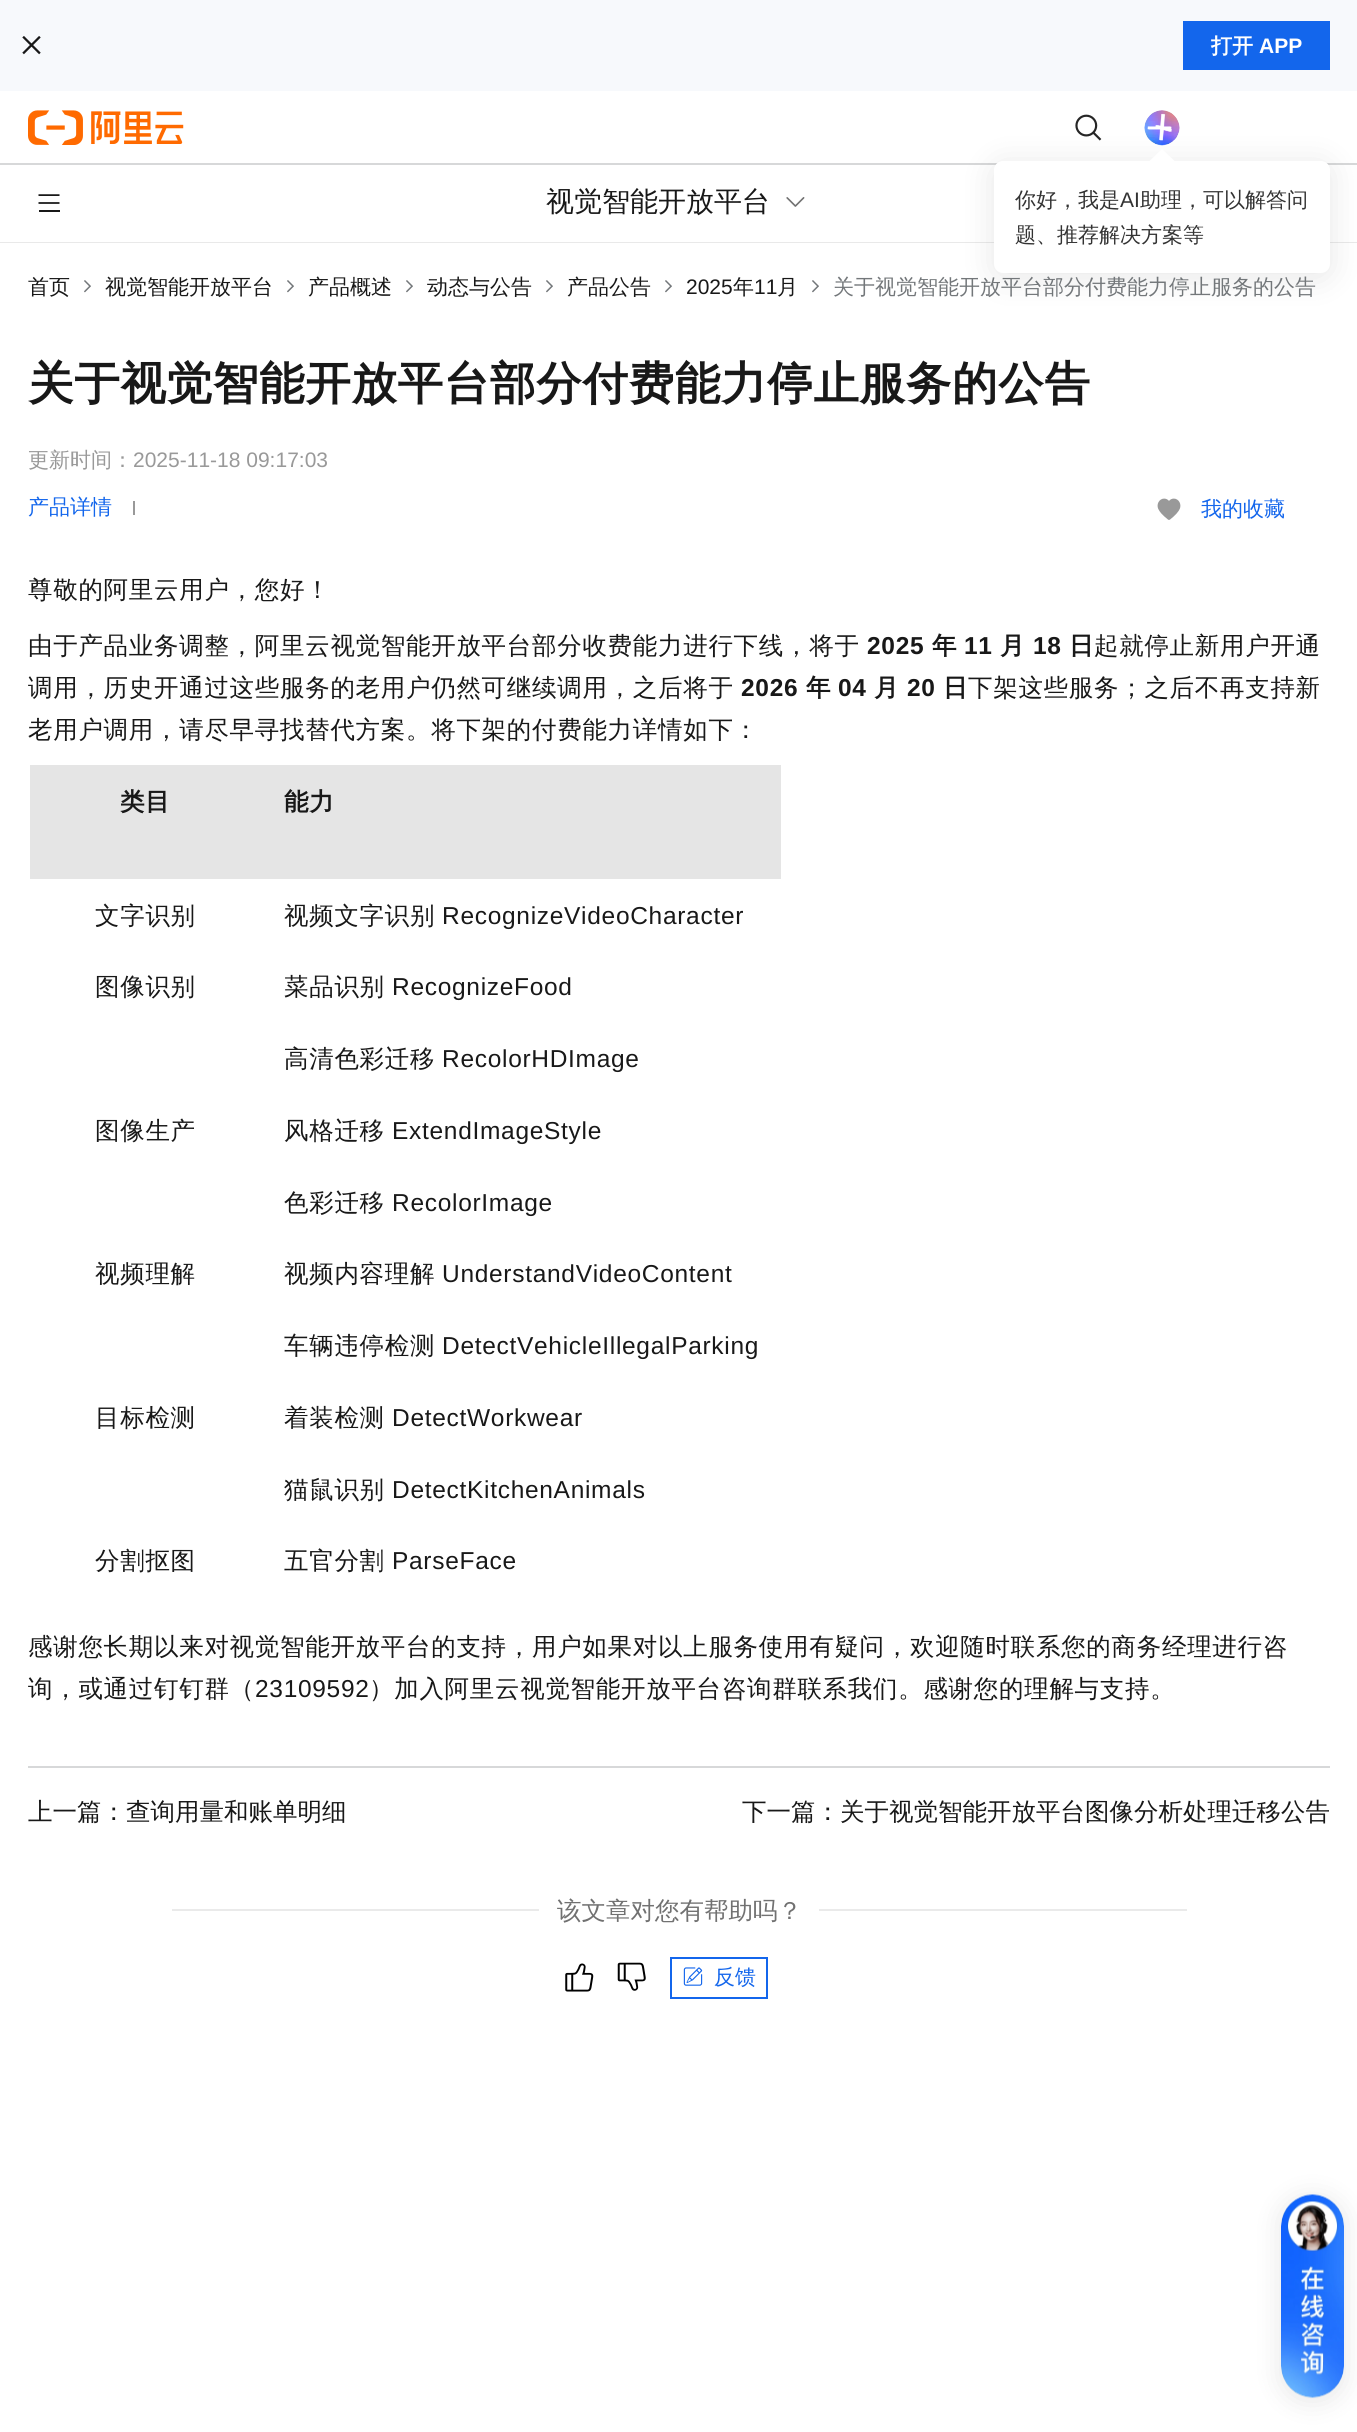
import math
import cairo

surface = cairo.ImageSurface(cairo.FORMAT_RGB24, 1357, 2432)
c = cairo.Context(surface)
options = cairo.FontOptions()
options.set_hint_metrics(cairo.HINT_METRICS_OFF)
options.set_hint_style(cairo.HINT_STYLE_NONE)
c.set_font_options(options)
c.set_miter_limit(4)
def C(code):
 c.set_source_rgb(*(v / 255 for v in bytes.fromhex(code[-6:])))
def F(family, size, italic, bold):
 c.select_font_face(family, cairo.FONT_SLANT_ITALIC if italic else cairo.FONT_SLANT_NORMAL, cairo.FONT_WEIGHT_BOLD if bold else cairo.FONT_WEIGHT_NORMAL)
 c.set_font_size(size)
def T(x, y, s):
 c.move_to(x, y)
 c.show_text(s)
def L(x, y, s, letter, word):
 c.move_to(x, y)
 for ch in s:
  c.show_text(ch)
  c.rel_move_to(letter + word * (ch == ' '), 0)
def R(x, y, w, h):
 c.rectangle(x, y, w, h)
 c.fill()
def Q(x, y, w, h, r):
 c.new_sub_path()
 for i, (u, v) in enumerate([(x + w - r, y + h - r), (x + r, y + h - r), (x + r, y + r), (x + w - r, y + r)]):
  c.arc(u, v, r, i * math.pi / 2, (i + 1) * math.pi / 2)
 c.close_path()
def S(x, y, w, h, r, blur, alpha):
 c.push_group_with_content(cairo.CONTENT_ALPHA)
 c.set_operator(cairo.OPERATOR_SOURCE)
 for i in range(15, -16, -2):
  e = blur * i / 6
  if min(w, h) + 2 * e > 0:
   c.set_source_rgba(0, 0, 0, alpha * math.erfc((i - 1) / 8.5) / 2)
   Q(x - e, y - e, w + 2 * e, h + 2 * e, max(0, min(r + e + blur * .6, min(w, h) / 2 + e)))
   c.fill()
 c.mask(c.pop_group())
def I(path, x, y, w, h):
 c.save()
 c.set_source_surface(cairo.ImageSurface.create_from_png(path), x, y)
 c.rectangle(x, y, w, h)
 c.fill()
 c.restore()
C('ffffff')
c.paint()
C('f7f9fc')
R(0,0,1357,91)
I('1.png',22,36,19,19)
C('1366ec')
R(1183,21,147,49)
F('WenQuanYi Zen Hei',21,0,1)
C('ffffff')
T(1211,53,'打开')
F('Liberation Sans',21,0,1)
T(1259,53,'APP')
C('d7d8d9')
R(0,163,1357,2)
I('2.png',28,110,156,35)
I('3.png',1075,114,27,27)
I('4.png',1144,110,36,36)
I('5.png',1147,113,25,28)
C('e9e9e9')
R(0,242,1357,1)
C('000000')
S(994,165,336,112,9,16,.1)
C('ffffff')
Q(994,161,336,112,9)
c.fill()
c.new_path()
c.move_to(1162,149)
c.line_to(1174.5,161)
c.line_to(1162,173.5)
c.line_to(1149.5,161)
c.close_path()
c.fill()
F('WenQuanYi Zen Hei Medium',21,0,0)
C('333333')
T(1015,207,'你好，我是')
F('Liberation Sans',21,0,0)
T(1120,207,'AI')
F('WenQuanYi Zen Hei Medium',21,0,0)
T(1140,207,'助理，可以解答问')
T(1015,242,'题、推荐解决方案等')
I('6.png',38,194,22,18)
F('WenQuanYi Zen Hei Medium',28,0,0)
C('181818')
T(546,211,'视觉智能开放平台')
I('7.png',786,197,19,10)
F('WenQuanYi Zen Hei Medium',21,0,0)
T(28,294,'首页')
I('8.png',84,280,7,13)
T(105,294,'视觉智能开放平台')
I('8.png',287,280,7,13)
T(308,294,'产品概述')
I('8.png',406,280,7,13)
T(427,294,'动态与公告')
I('8.png',546,280,7,13)
T(567,294,'产品公告')
I('8.png',665,280,7,13)
F('Liberation Sans',21,0,0)
T(686,294,'2025')
F('WenQuanYi Zen Hei Medium',21,0,0)
T(733,294,'年')
F('Liberation Sans',21,0,0)
T(754,294,'11')
F('WenQuanYi Zen Hei Medium',21,0,0)
T(777,294,'月')
I('8.png',812,280,7,13)
C('73777a')
T(833,294,'关于视觉智能开放平台部分付费能力停止服务的公告')
F('WenQuanYi Zen Hei',45.5,0,1)
C('181818')
L(28,399,'关于视觉智能开放平台部分付费能力停止服务的公告',.7,0)
F('WenQuanYi Zen Hei Medium',21,0,0)
C('999999')
T(28,467,'更新时间：')
F('Liberation Sans',21,0,0)
T(133,467,'2025-11-18 09:17:03')
F('WenQuanYi Zen Hei Medium',21,0,0)
C('1366ec')
T(28,514,'产品详情')
C('999999')
R(133,501,2,14)
I('9.png',1157,498,24,22)
C('1366ec')
T(1201,516,'我的收藏')
F('WenQuanYi Zen Hei Medium',24.5,0,0)
C('181818')
L(28,598,'尊敬的阿里云用户，您好！',.7,0)
L(28,654,'由于产品业务调整，阿里云视觉智能开放平台部分收费能力进行下线，将于',.7,0)
F('Liberation Sans',24.5,0,1)
L(867,654,'2025',.7,0)
F('WenQuanYi Zen Hei',24.5,0,1)
L(932,654,'年',.7,0)
F('Liberation Sans',24.5,0,1)
L(964,654,'11',.7,0)
F('WenQuanYi Zen Hei',24.5,0,1)
L(1000,654,'月',.7,0)
F('Liberation Sans',24.5,0,1)
L(1033,654,'18',.7,0)
F('WenQuanYi Zen Hei',24.5,0,1)
L(1069,654,'日',.7,0)
F('WenQuanYi Zen Hei Medium',24.5,0,0)
L(1094,654,'起就停止新用户开通',.7,0)
L(28,696,'调用，历史开通过这些服务的老用户仍然可继续调用，之后将于',.7,0)
F('Liberation Sans',24.5,0,1)
L(741,696,'2026',.7,0)
F('WenQuanYi Zen Hei',24.5,0,1)
L(806,696,'年',.7,0)
F('Liberation Sans',24.5,0,1)
L(838,696,'04',.7,0)
F('WenQuanYi Zen Hei',24.5,0,1)
L(874,696,'月',.7,0)
F('Liberation Sans',24.5,0,1)
L(907,696,'20',.7,0)
F('WenQuanYi Zen Hei',24.5,0,1)
L(943,696,'日',.7,0)
F('WenQuanYi Zen Hei Medium',24.5,0,0)
L(968,696,'下架这些服务；之后不再支持新',.7,0)
L(28,738,'老用户调用，请尽早寻找替代方案。将下架的付费能力详情如下：',.7,0)
C('e5e5e5')
R(30,765,751,114)
F('WenQuanYi Zen Hei',24.5,0,1)
C('181818')
L(120,810,'类目',.7,0)
L(284,810,'能力',.7,0)
F('WenQuanYi Zen Hei Medium',24.5,0,0)
L(95,924,'文字识别',.7,0)
L(284,924,'视频文字识别',.7,0)
F('Liberation Sans',24.5,0,0)
L(442,924,'RecognizeVideoCharacter',.7,0)
F('WenQuanYi Zen Hei Medium',24.5,0,0)
L(95,995,'图像识别',.7,0)
L(284,995,'菜品识别',.7,0)
F('Liberation Sans',24.5,0,0)
L(392,995,'RecognizeFood',.7,0)
F('WenQuanYi Zen Hei Medium',24.5,0,0)
L(284,1067,'高清色彩迁移',.7,0)
F('Liberation Sans',24.5,0,0)
L(442,1067,'RecolorHDImage',.7,0)
F('WenQuanYi Zen Hei Medium',24.5,0,0)
L(95,1139,'图像生产',.7,0)
L(284,1139,'风格迁移',.7,0)
F('Liberation Sans',24.5,0,0)
L(392,1139,'ExtendImageStyle',.7,0)
F('WenQuanYi Zen Hei Medium',24.5,0,0)
L(284,1211,'色彩迁移',.7,0)
F('Liberation Sans',24.5,0,0)
L(392,1211,'RecolorImage',.7,0)
F('WenQuanYi Zen Hei Medium',24.5,0,0)
L(95,1282,'视频理解',.7,0)
L(284,1282,'视频内容理解',.7,0)
F('Liberation Sans',24.5,0,0)
L(442,1282,'UnderstandVideoContent',.7,0)
F('WenQuanYi Zen Hei Medium',24.5,0,0)
L(284,1354,'车辆违停检测',.7,0)
F('Liberation Sans',24.5,0,0)
L(442,1354,'DetectVehicleIllegalParking',.7,0)
F('WenQuanYi Zen Hei Medium',24.5,0,0)
L(95,1426,'目标检测',.7,0)
L(284,1426,'着装检测',.7,0)
F('Liberation Sans',24.5,0,0)
L(392,1426,'DetectWorkwear',.7,0)
F('WenQuanYi Zen Hei Medium',24.5,0,0)
L(284,1498,'猫鼠识别',.7,0)
F('Liberation Sans',24.5,0,0)
L(392,1498,'DetectKitchenAnimals',.7,0)
F('WenQuanYi Zen Hei Medium',24.5,0,0)
L(95,1569,'分割抠图',.7,0)
L(284,1569,'五官分割',.7,0)
F('Liberation Sans',24.5,0,0)
L(392,1569,'ParseFace',.7,0)
F('WenQuanYi Zen Hei Medium',24.5,0,0)
L(28,1655,'感谢您长期以来对视觉智能开放平台的支持，用户如果对以上服务使用有疑问，欢迎随时联系您的商务经理进行咨',.7,0)
L(28,1697,'询，或通过钉钉群（',.7,0)
F('Liberation Sans',24.5,0,0)
L(255,1697,'23109592',.7,0)
F('WenQuanYi Zen Hei Medium',24.5,0,0)
L(369,1697,'）加入阿里云视觉智能开放平台咨询群联系我们。感谢您的理解与支持。',.7,0)
C('d7d8d9')
R(28,1766,1302,2)
C('181818')
T(28,1820,'上一篇：查询用量和账单明细')
T(742,1820,'下一篇：关于视觉智能开放平台图像分析处理迁移公告')
C('eaeaea')
R(172,1909,367,2)
C('717171')
T(557,1919,'该文章对您有帮助吗？')
C('eaeaea')
R(819,1909,368,2)
I('10.png',565,1963,29,29)
I('11.png',617,1962,29,29)
c.rectangle(671,1958,96,40)
C('1366ec')
c.stroke()
I('12.png',683,1967,20,19)
F('WenQuanYi Zen Hei Medium',21,0,0)
T(714,1984,'反馈')
C('000000')
S(1281,2198,63,203,31.5,13,.1)
I('13.png',1281,2194,63,204)
surface.write_to_png('o.png')
